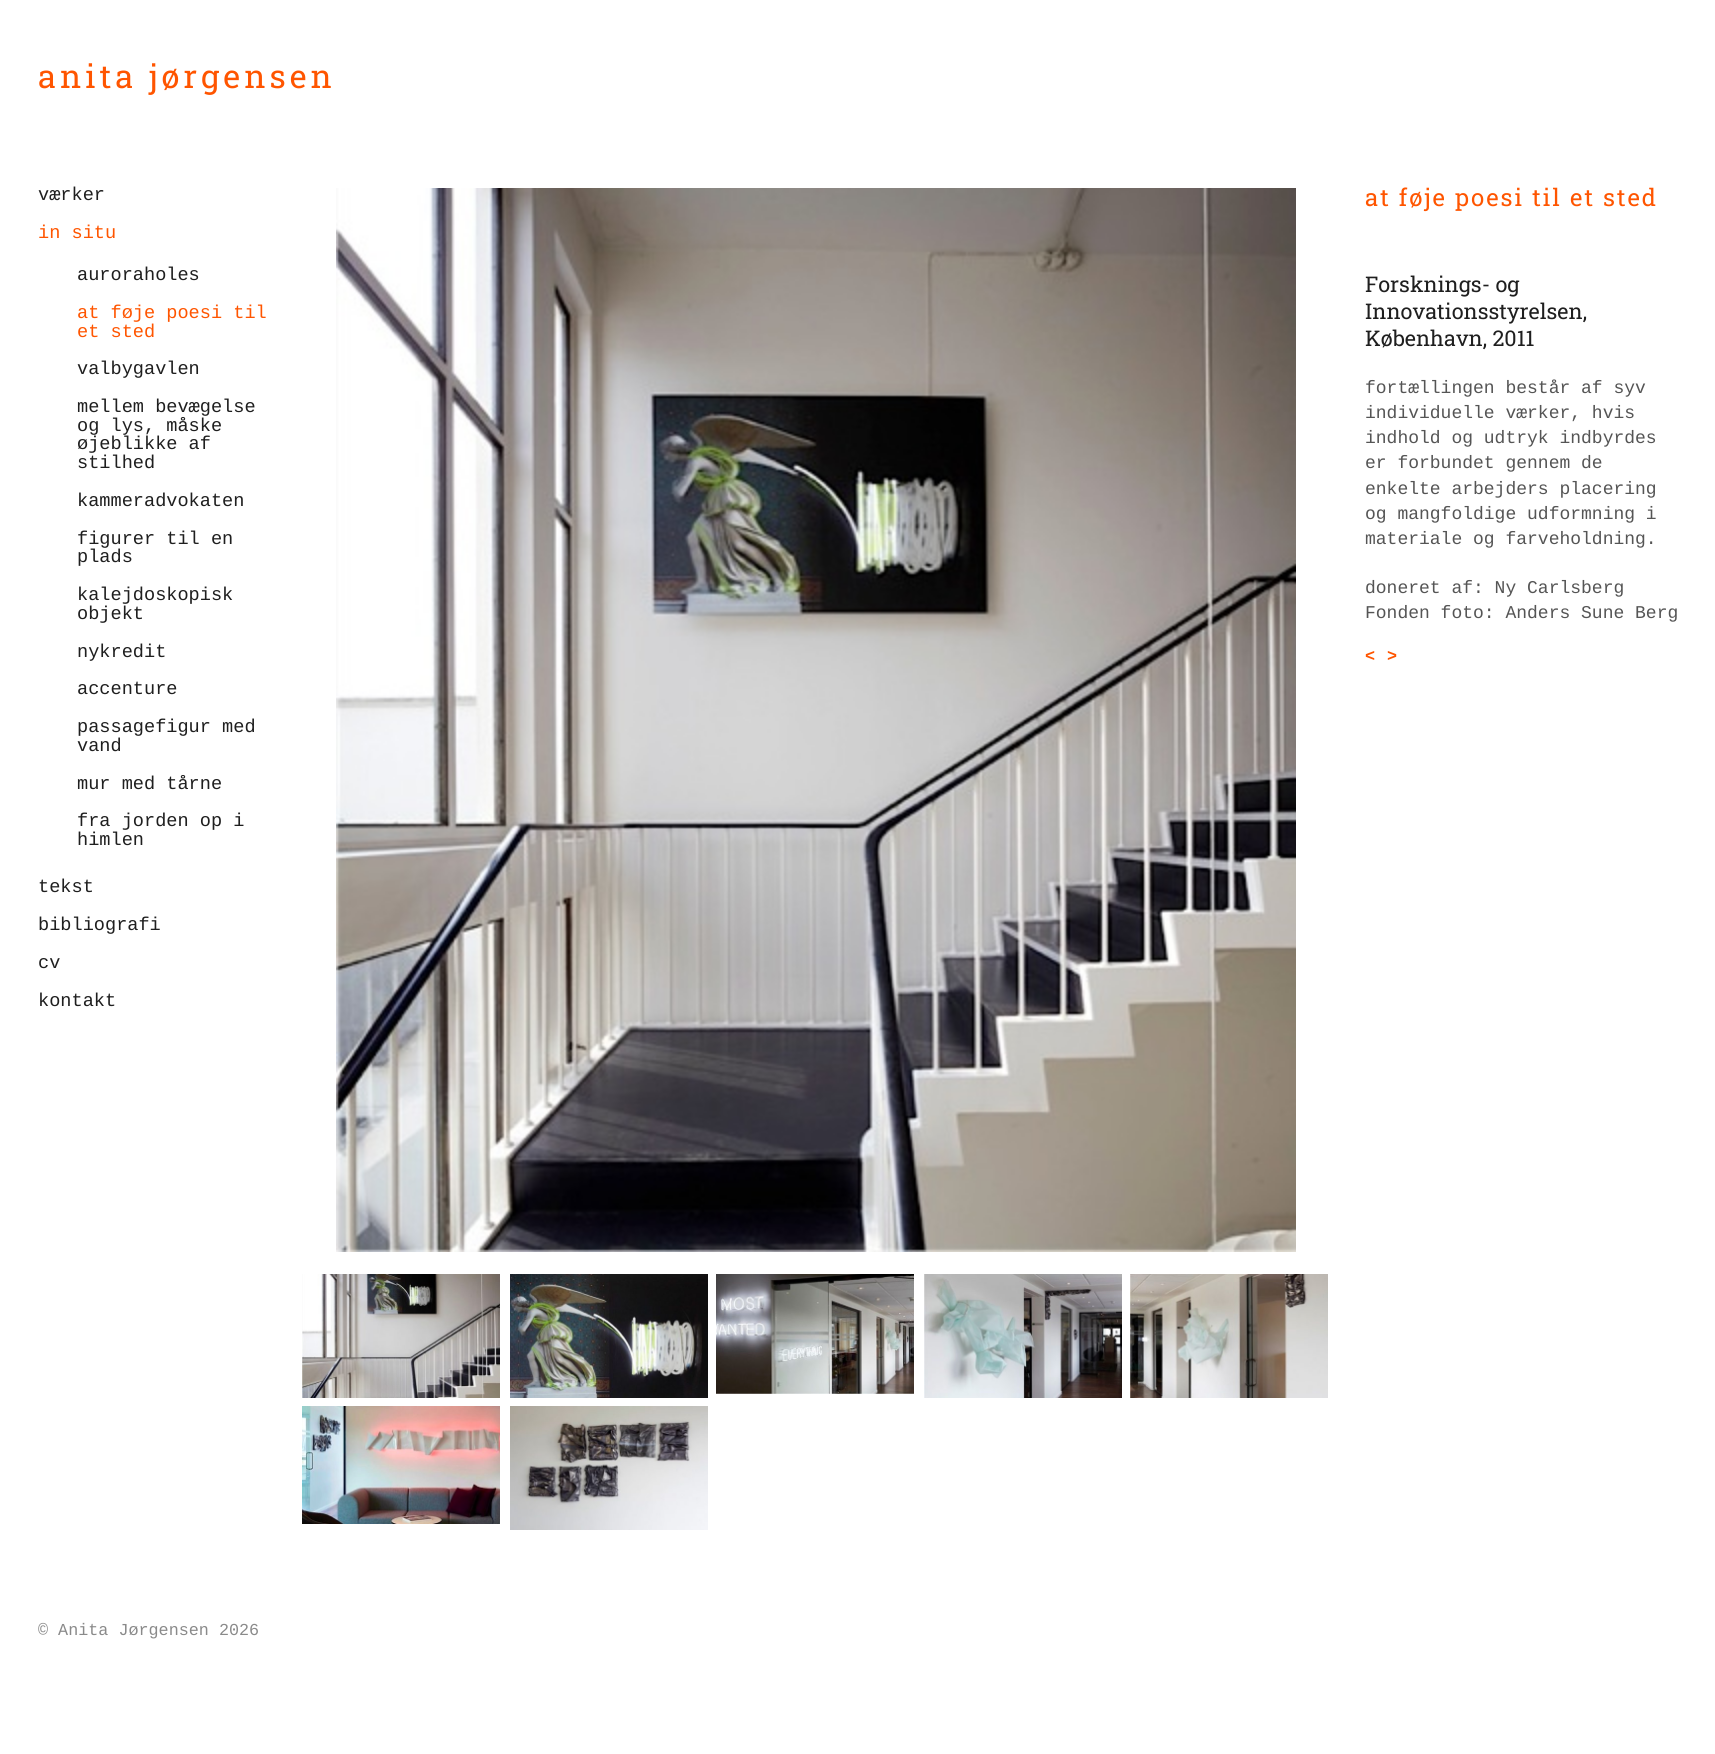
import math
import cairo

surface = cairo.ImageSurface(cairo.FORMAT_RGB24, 1715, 1754)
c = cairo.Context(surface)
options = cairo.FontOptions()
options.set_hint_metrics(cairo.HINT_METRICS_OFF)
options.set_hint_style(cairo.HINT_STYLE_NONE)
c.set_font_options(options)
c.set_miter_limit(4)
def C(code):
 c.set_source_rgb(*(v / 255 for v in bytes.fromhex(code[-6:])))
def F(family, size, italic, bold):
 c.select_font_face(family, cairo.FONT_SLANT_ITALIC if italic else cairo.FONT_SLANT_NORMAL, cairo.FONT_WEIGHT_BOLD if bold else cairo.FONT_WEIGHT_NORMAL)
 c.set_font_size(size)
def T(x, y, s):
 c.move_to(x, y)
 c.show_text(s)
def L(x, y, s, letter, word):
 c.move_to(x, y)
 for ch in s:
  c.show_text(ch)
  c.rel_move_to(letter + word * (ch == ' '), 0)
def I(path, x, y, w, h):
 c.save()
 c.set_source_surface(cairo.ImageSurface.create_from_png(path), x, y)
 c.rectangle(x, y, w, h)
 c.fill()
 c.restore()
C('ffffff')
c.paint()
F('Roboto Slab',32.5,0,0)
C('ff5500')
L(38,88,'anita jørgensen',4,0)
F('Liberation Mono',18.6,0,0)
C('1f1f1f')
T(38,200,'værker')
C('ff5500')
T(38,238,'in situ')
C('1f1f1f')
T(77,280,'auroraholes')
C('ff5500')
T(77,318,'at føje poesi til')
T(77,337,'et sted')
C('1f1f1f')
T(77,374,'valbygavlen')
T(77,412,'mellem bevægelse')
T(77,431,'og lys, måske')
T(77,449,'øjeblikke af')
T(77,468,'stilhed')
T(77,506,'kammeradvokaten')
T(77,544,'figurer til en')
T(77,562,'plads')
T(77,600,'kalejdoskopisk')
T(77,619,'objekt')
T(77,657,'nykredit')
T(77,694,'accenture')
T(77,732,'passagefigur med')
T(77,751,'vand')
T(77,789,'mur med tårne')
T(77,826,'fra jorden op i')
T(77,845,'himlen')
T(38,892,'tekst')
T(38,930,'bibliografi')
T(38,968,'cv')
T(38,1006,'kontakt')
I('1.png',336,188,960,1064)
I('2.png',302,1274,198,124)
I('3.png',510,1274,198,124)
I('4.png',716,1274,198,120)
I('5.png',924,1274,198,124)
I('6.png',1130,1274,198,124)
I('7.png',302,1406,198,118)
I('8.png',510,1406,198,124)
F('Roboto Slab',24,0,0)
C('ff5500')
L(1365,206,'at føje poesi til et sted',2,0)
F('Roboto Slab',21.6,0,0)
C('1f1f1f')
T(1365,292,'Forsknings- og')
T(1365,319,'Innovationsstyrelsen,')
T(1365,346,'København, 2011')
F('Liberation Mono',18,0,0)
C('555555')
T(1365,393,'fortællingen består af syv')
T(1365,418,'individuelle værker, hvis')
T(1365,443,'indhold og udtryk indbyrdes')
T(1365,468,'er forbundet gennem de')
T(1365,494,'enkelte arbejders placering')
T(1365,519,'og mangfoldige udformning i')
T(1365,544,'materiale og farveholdning.')
T(1365,593,'doneret af: Ny Carlsberg')
T(1365,618,'Fonden foto: Anders Sune Berg')
F('Liberation Mono',16.75,0,1)
C('ff5500')
T(1365,661,'<')
T(1387,661,'>')
F('Liberation Mono',16.75,0,0)
C('8a8a8a')
T(38,1635,'© Anita Jørgensen 2026')
surface.write_to_png('o.png')
